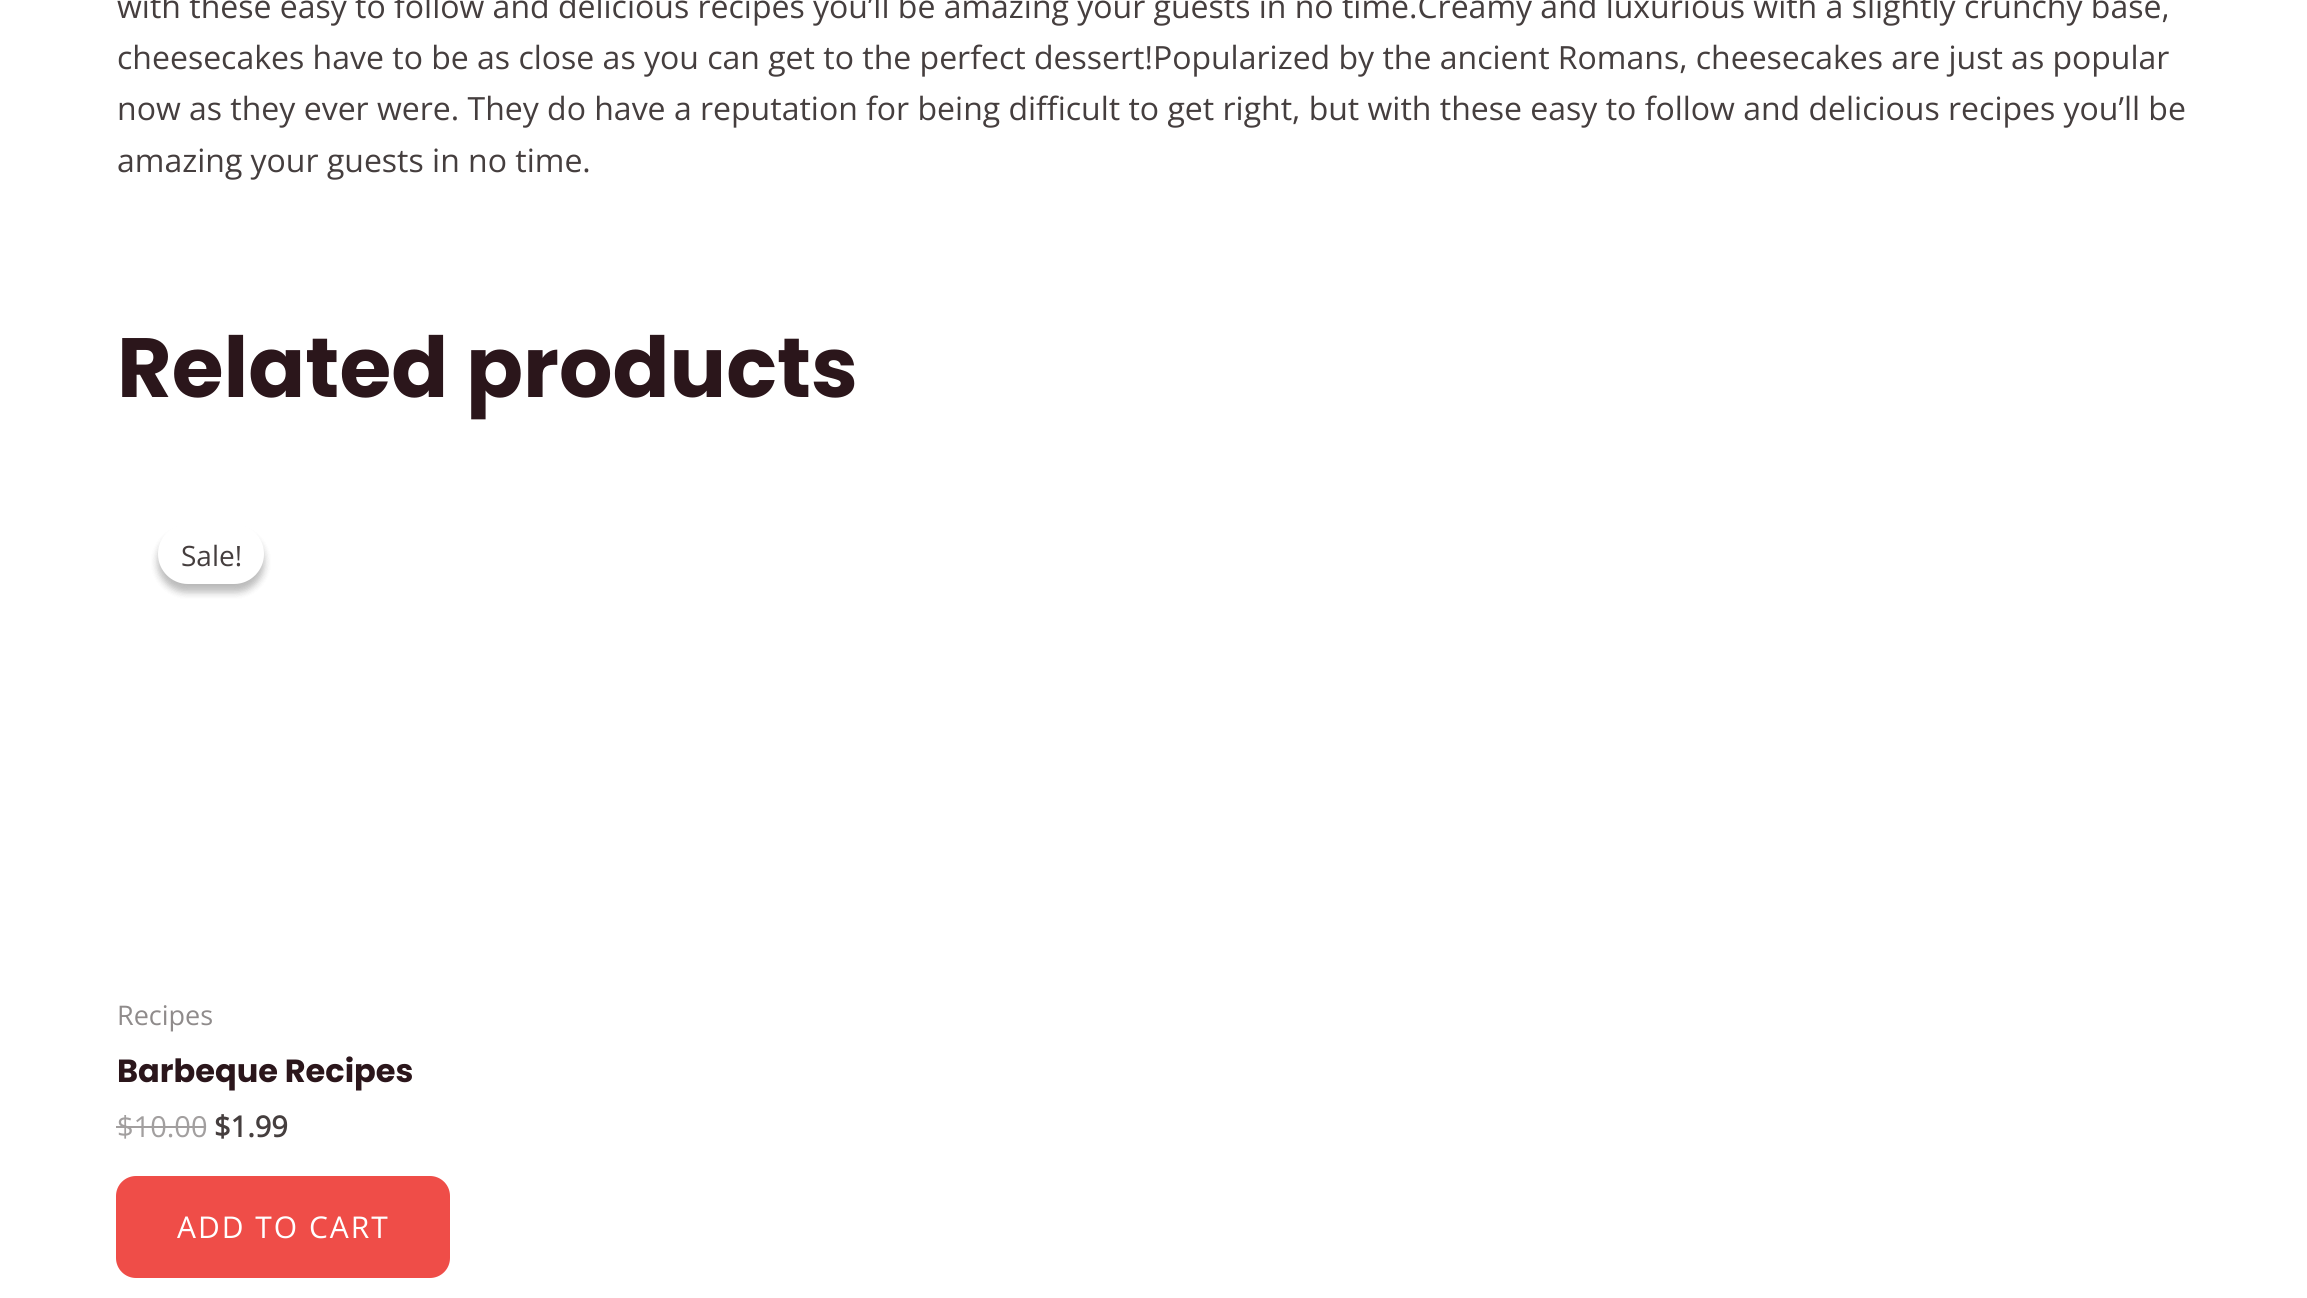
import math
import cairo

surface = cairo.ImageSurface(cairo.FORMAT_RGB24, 2307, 1298)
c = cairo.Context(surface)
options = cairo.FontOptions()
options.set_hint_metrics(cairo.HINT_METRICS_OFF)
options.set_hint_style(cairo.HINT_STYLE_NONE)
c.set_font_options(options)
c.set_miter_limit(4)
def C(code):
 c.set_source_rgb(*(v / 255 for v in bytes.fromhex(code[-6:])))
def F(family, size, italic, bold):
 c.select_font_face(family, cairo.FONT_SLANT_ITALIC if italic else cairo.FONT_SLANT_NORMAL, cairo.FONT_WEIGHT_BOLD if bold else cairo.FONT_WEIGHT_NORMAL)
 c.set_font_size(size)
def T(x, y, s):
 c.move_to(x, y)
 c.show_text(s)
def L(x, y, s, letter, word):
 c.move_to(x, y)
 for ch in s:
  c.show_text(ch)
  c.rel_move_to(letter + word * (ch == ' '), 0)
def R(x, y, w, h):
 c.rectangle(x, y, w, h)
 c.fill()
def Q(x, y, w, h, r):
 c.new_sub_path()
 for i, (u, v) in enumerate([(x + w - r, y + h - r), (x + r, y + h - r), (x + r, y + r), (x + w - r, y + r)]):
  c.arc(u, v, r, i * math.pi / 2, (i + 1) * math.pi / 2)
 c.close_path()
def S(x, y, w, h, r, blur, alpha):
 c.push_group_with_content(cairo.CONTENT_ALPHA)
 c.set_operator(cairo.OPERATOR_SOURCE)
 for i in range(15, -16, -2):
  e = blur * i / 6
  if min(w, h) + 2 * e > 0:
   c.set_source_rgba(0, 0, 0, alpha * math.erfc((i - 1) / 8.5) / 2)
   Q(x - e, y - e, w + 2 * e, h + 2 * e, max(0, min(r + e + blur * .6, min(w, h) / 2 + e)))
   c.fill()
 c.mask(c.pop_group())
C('ffffff')
c.paint()
F('Open Sans',32,0,0)
C('453e3e')
T(117,18,'with these easy to follow and delicious recipes you’ll be amazing your guests in no time.Creamy and luxurious with a slightly crunchy base,')
T(117,69,'cheesecakes have to be as close as you can get to the perfect dessert!Popularized by the ancient Romans, cheesecakes are just as popular')
T(117,120,'now as they ever were. They do have a reputation for being difficult to get right, but with these easy to follow and delicious recipes you’ll be')
T(117,172,'amazing your guests in no time.')
F('Poppins',84,0,1)
C('2b161b')
T(117,397,'Related products')
C('000000')
S(158,532,106,60,30,4,.15)
S(158,532,106,60,30,4,.15)
C('ffffff')
Q(158,524,106,60,30)
c.fill()
F('Open Sans',28,0,0)
C('453e3e')
T(181,566,'Sale!')
F('Open Sans',27,0,0)
C('8f8b8b')
T(117,1025,'Recipes')
F('Poppins',32,0,1)
C('2b161b')
T(117,1082,'Barbeque Recipes')
F('Open Sans',29,0,0)
C('a29f9f')
T(117,1137,'$10.00')
R(116,1126,90,2)
F('Open Sans',29,0,1)
C('453e3e')
T(214,1137,'$1.99')
C('ef4d48')
Q(116,1176,334,102,20)
c.fill()
F('Open Sans',30,0,0)
C('ffffff')
L(177,1238,'ADD TO CART',2,0)
surface.write_to_png('o.png')
